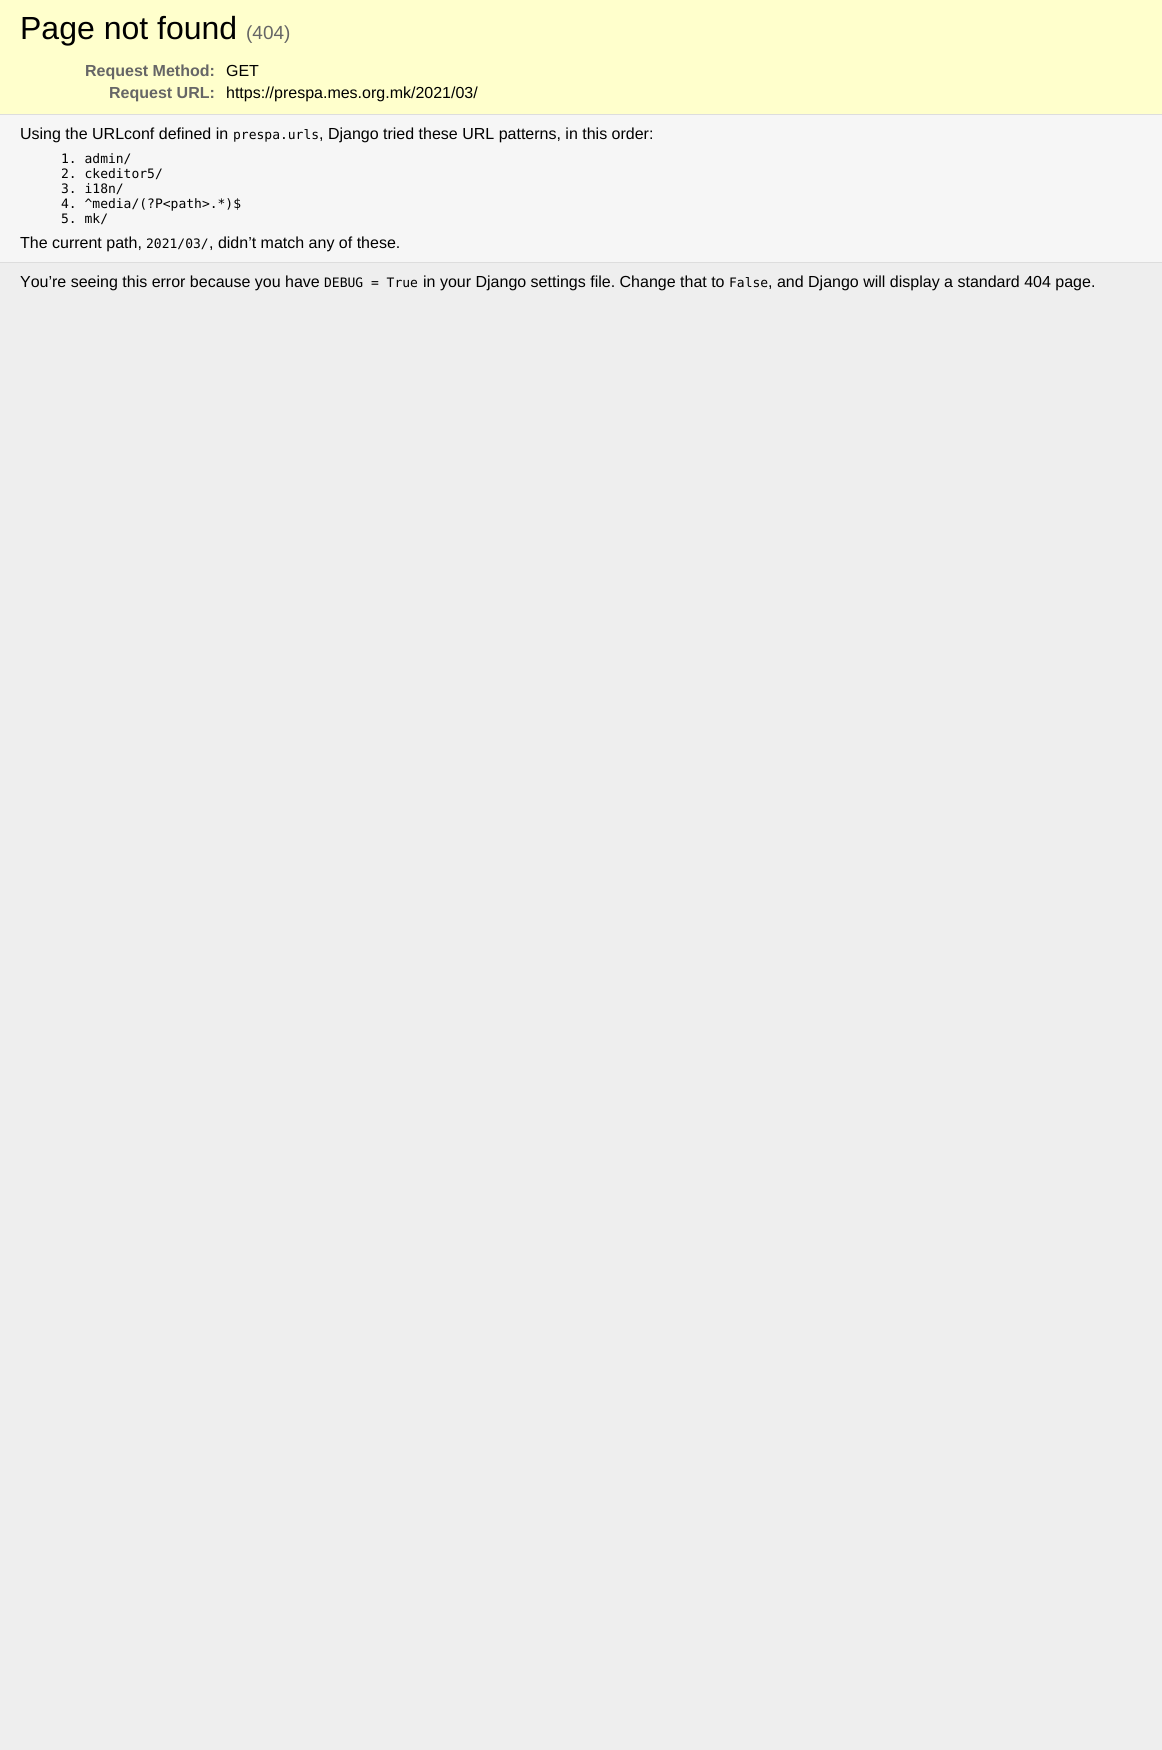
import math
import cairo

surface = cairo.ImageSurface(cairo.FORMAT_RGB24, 1162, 1750)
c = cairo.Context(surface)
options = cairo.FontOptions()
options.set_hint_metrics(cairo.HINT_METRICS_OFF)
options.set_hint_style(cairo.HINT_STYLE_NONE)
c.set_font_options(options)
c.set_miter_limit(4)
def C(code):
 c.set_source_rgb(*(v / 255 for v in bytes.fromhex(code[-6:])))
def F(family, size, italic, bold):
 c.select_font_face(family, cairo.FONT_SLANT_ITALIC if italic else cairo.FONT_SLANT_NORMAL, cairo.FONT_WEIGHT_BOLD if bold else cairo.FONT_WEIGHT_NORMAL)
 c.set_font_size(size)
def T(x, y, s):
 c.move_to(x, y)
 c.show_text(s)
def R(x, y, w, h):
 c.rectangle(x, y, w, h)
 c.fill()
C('eeeeee')
c.paint()
C('ffffcc')
R(0,0,1162,114)
C('dddddd')
R(0,114,1162,1)
F('Liberation Sans',32,0,0)
C('000000')
T(20,39,'Page not found')
F('Liberation Sans',19,0,0)
C('666666')
T(246,39,'(404)')
F('Liberation Sans',16,0,1)
T(85,76,'Request Method:')
F('Liberation Sans',16,0,0)
C('000000')
T(226,76,'GET')
F('Liberation Sans',16,0,1)
C('666666')
T(109,98,'Request URL:')
F('Liberation Sans',16,0,0)
C('000000')
T(226,98,'https://prespa.mes.org.mk/2021/03/')
C('f6f6f6')
R(0,115,1162,147)
C('dddddd')
R(0,262,1162,1)
C('000000')
T(20,139,'Using the URLconf defined in')
F('DejaVu Sans Mono',13,0,0)
T(233,139,'prespa.urls')
F('Liberation Sans',16,0,0)
T(319,139,', Django tried these URL patterns, in this order:')
F('DejaVu Sans Mono',13,0,0)
T(61,163,'1. admin/')
T(61,178,'2. ckeditor5/')
T(61,193,'3. i18n/')
T(61,208,'4. ^media/(?P<path>.*)$')
T(61,223,'5. mk/')
F('Liberation Sans',16,0,0)
T(20,248,'The current path,')
F('DejaVu Sans Mono',13,0,0)
T(146,248,'2021/03/')
F('Liberation Sans',16,0,0)
T(209,248,', didn’t match any of these.')
T(20,287,'You’re seeing this error because you have')
F('DejaVu Sans Mono',13,0,0)
T(324,287,'DEBUG = True')
F('Liberation Sans',16,0,0)
T(423,287,'in your Django settings file. Change that to')
F('DejaVu Sans Mono',13,0,0)
T(729,287,'False')
F('Liberation Sans',16,0,0)
T(768,287,', and Django will display a standard 404 page.')
surface.write_to_png('o.png')
